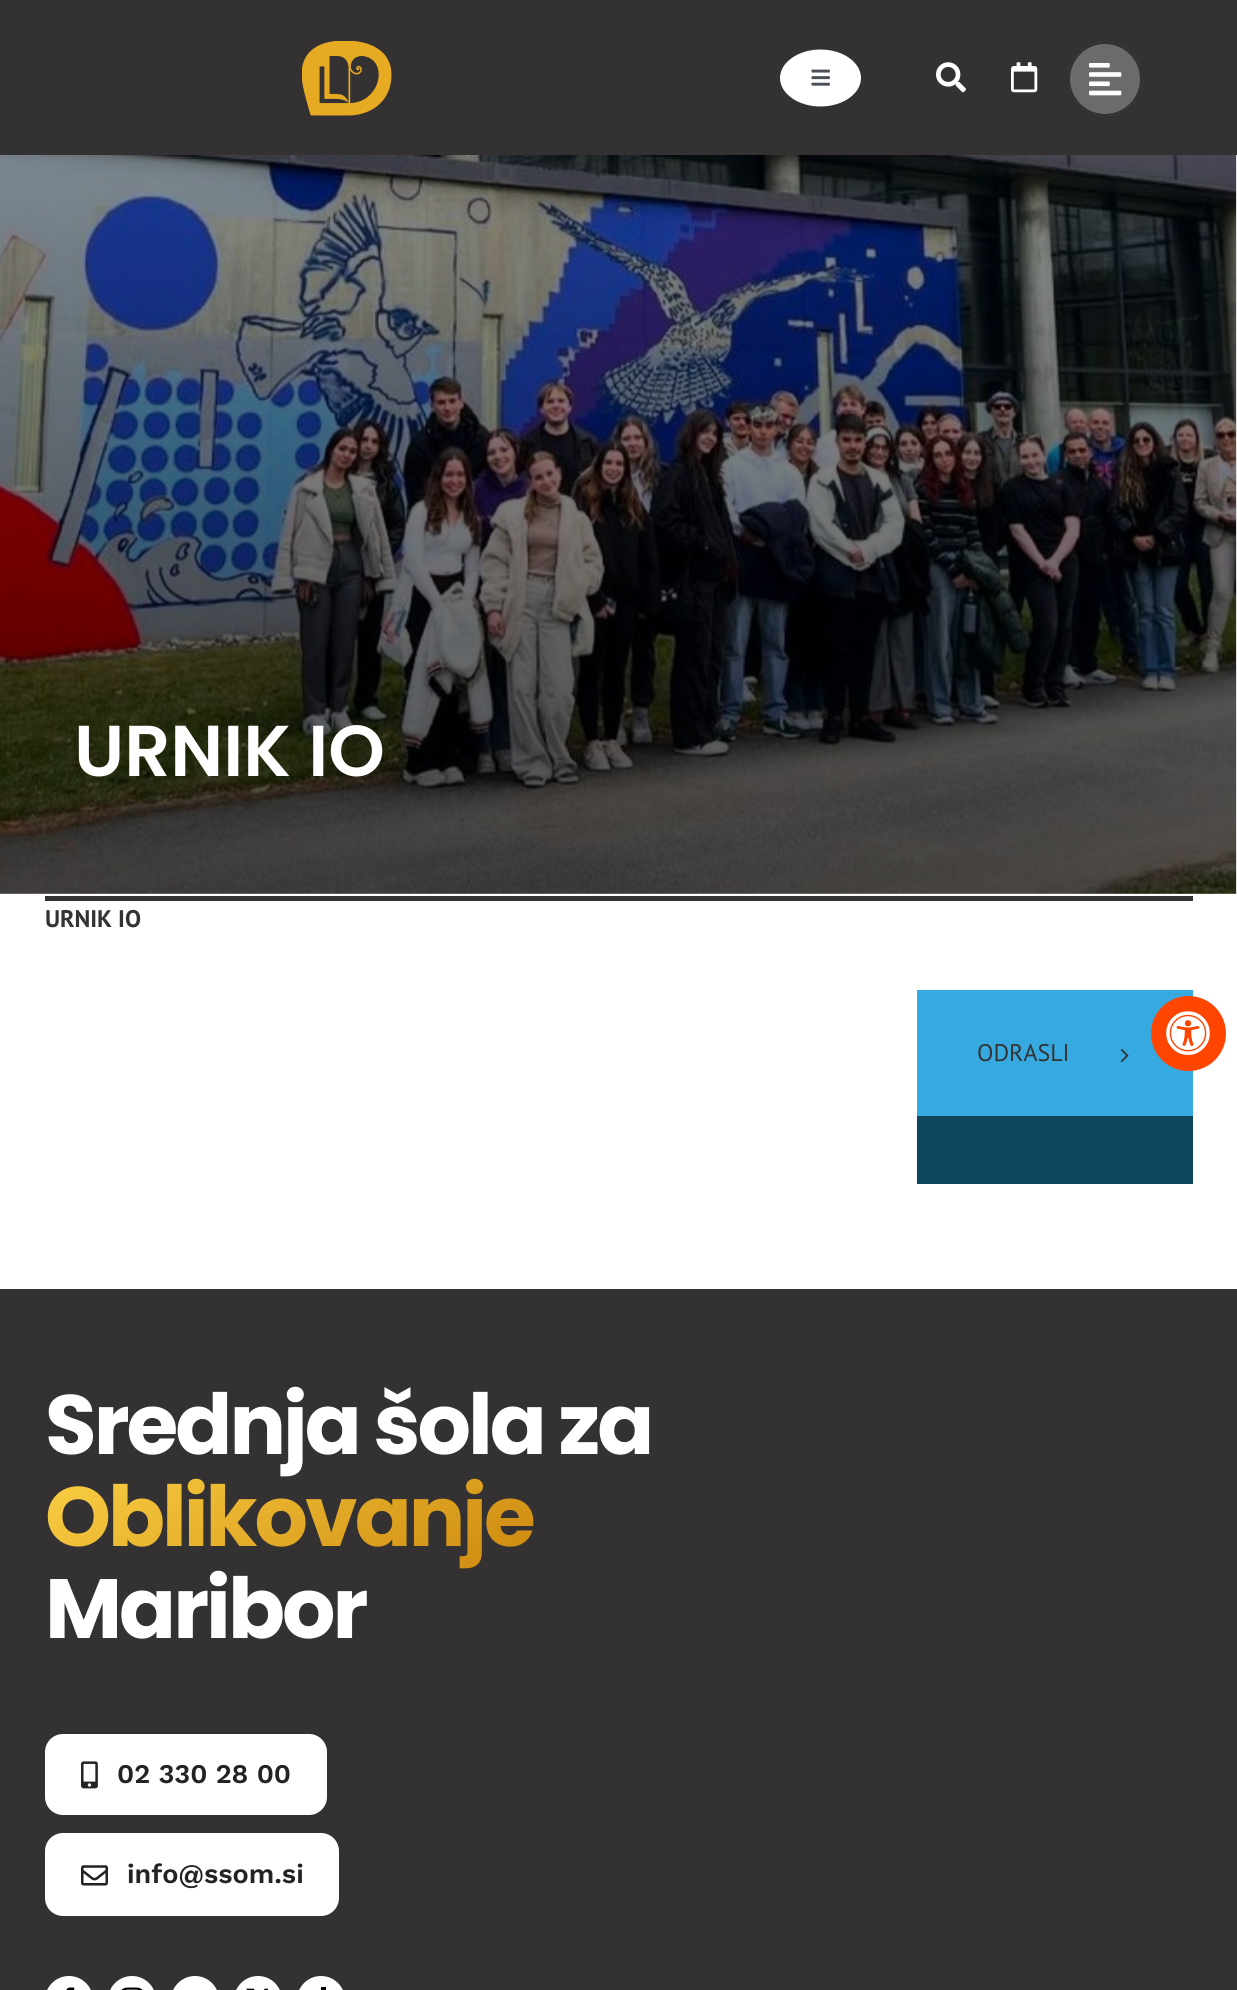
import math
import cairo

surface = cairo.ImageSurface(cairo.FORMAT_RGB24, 1237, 1990)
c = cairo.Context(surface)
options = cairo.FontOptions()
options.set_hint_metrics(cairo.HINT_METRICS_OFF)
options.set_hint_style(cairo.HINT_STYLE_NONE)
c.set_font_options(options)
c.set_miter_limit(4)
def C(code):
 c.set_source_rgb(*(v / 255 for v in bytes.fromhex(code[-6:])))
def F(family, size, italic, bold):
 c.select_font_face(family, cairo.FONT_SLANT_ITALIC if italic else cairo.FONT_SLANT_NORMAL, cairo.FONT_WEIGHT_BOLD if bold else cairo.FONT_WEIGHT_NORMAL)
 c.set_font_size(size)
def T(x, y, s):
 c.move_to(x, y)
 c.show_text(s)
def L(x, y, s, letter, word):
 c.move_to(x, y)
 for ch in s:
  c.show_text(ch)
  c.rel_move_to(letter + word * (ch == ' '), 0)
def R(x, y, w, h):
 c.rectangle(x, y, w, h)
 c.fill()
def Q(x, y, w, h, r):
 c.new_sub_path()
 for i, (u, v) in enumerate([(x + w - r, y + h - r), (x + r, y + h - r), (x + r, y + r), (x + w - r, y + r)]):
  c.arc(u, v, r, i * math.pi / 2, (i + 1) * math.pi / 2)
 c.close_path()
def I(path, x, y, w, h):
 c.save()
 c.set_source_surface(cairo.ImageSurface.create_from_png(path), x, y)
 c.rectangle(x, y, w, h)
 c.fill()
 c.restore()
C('ffffff')
c.paint()
C('333132')
R(0,0,1237,155)
I('1.png',302,41,90,75)
C('ffffff')
c.new_path()
c.move_to(820.5,49.5)
c.curve_to(843,49.5,861,62.5,861,78)
c.curve_to(861,93.5,843,106.5,820.5,106.5)
c.curve_to(798,106.5,780,93.5,780,78)
c.curve_to(780,62.5,798,49.5,820.5,49.5)
c.close_path()
c.fill()
I('2.png',811,69,19,17)
I('3.png',936,62,30,31)
I('4.png',1011,62,27,31)
C('6b6b6b')
c.arc(1105,79,37,0,2 * math.pi)
c.fill()
c.arc(1105,79,36,0,2 * math.pi)
c.set_source_rgba(0,0,0,0.54)
c.stroke()
I('5.png',1089,63,33,33)
C('e0e0e0')
R(0,155,1237,739)
I('6.png',0,155,1236,739)
F('Poppins SemiBold',72,0,0)
C('ffffff')
T(74,776,'URNIK IO')
C('333333')
R(45,896,1148,5)
F('PT Sans',24,0,1)
T(45,927,'URNIK IO')
C('0e465e')
R(917,1116,276,68)
C('36a9e1')
R(917,990,276,126)
F('PT Sans',24,0,0)
C('333333')
T(977,1061,'ODRASLI')
I('7.png',1120,1048,9,15)
C('333132')
R(0,1289,1237,701)
F('Poppins',84,0,1)
C('ffffff')
L(45,1454,'Srednja šola za',-3,0)
gradient = cairo.LinearGradient(437,1226,801,1808)
gradient.add_color_stop_rgba(0,0.98,0.812,0.263,1)
gradient.add_color_stop_rgba(.64,0.753,0.455,0,1)
c.set_source(gradient)
L(45,1546,'Oblikovanje',-3,0)
C('ffffff')
L(45,1638,'Maribor',-3,0)
Q(45,1734,282,81,18)
c.fill()
I('8.png',81,1761,17,28)
F('Work Sans SemiBold',27,0,0)
C('232323')
T(117,1783,'02 330 28 00')
C('ffffff')
Q(45,1833,294,83,18)
c.fill()
I('9.png',81,1865,27,21)
C('232323')
T(127,1883,'info@ssom.si')
C('ffffff')
Q(45,1976,48,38,24)
c.fill()
I('10.png',66,1987,9,3)
Q(108,1976,48,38,24)
c.fill()
I('11.png',121,1987,22,3)
Q(171,1976,48,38,24)
c.fill()
Q(234,1976,48,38,24)
c.fill()
I('12.png',246,1988,23,2)
Q(297,1976,48,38,24)
c.fill()
C('000000')
R(321,1987,5,3)
C('ff4500')
c.arc(1188.5,1033.5,37.5,0,2 * math.pi)
c.fill()
I('13.png',1166,1011,44,44)
surface.write_to_png('o.png')
